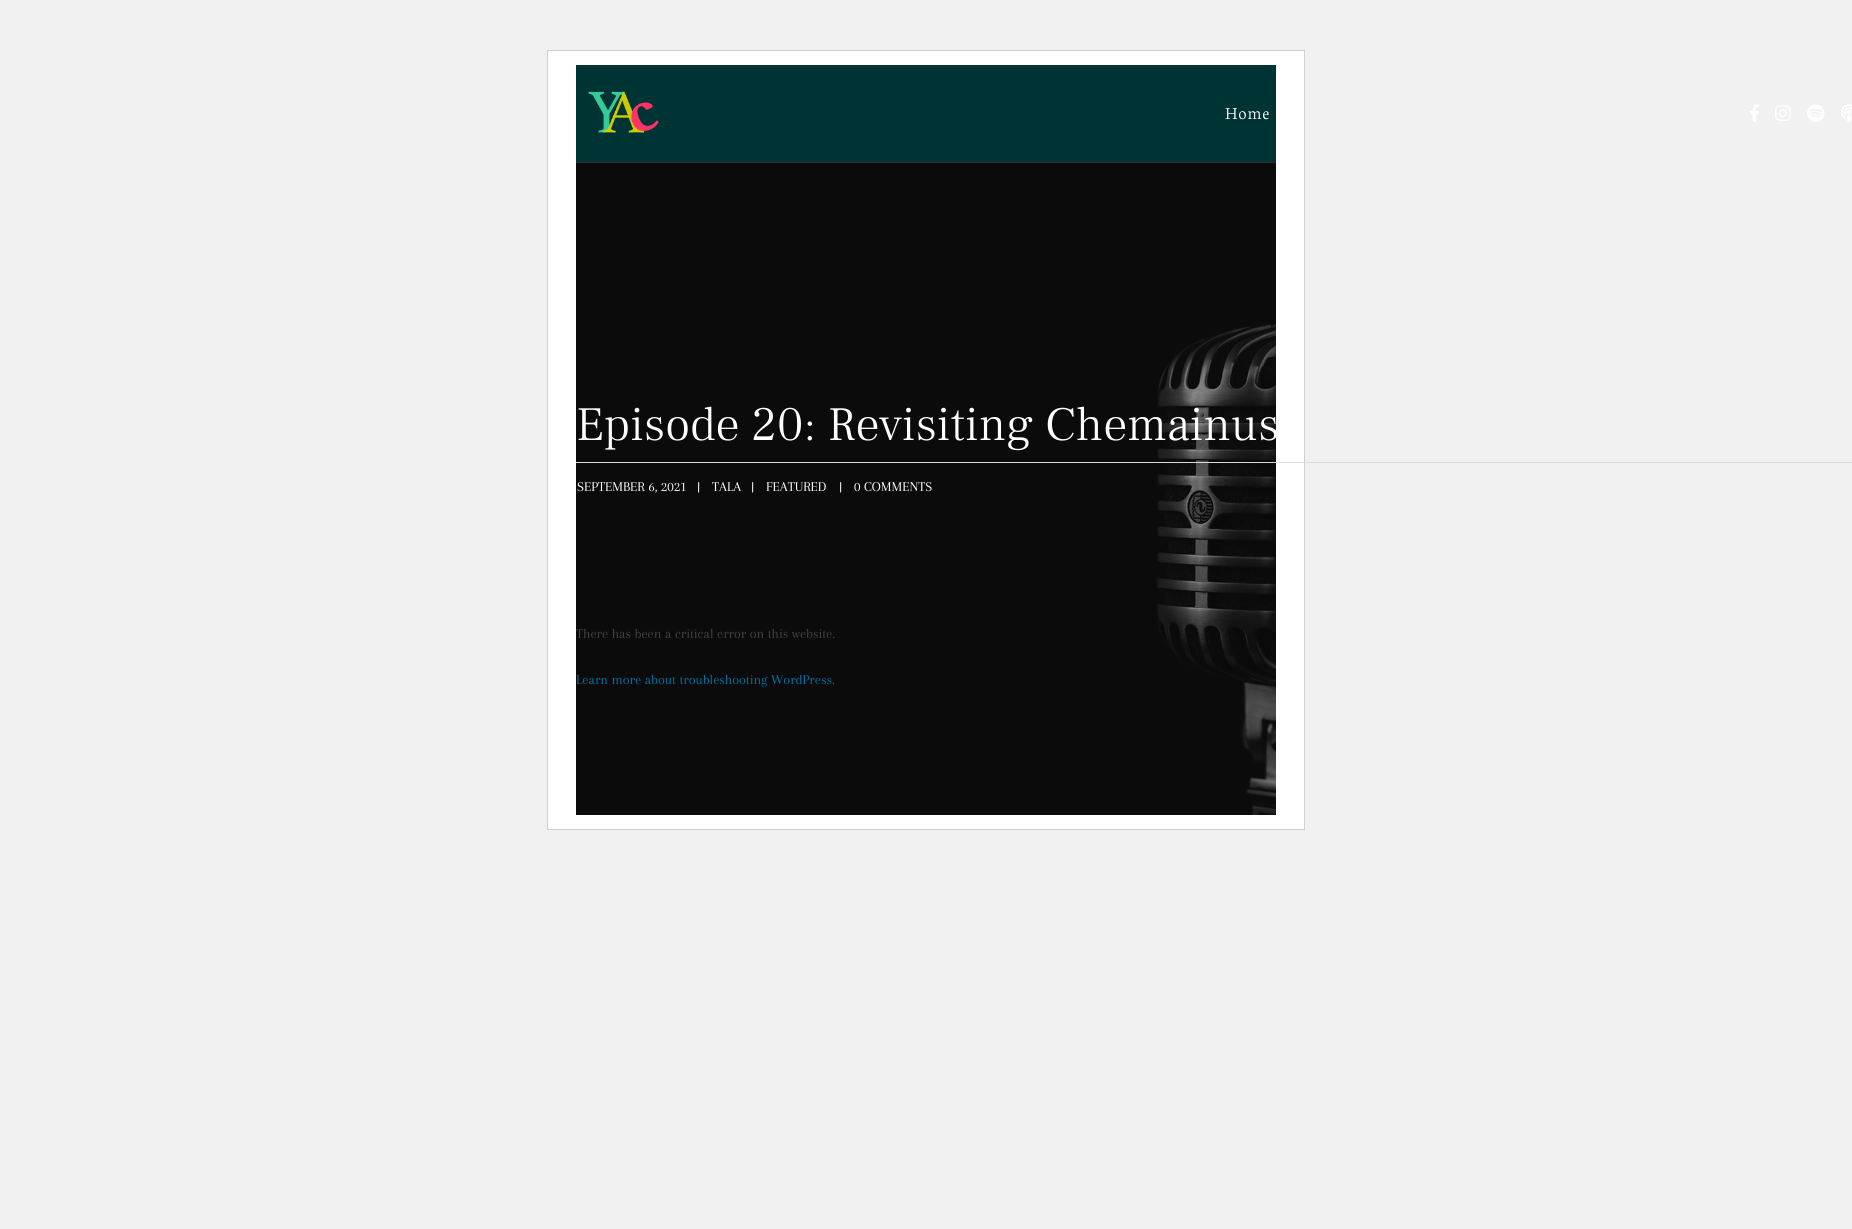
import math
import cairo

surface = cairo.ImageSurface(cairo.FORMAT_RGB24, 1852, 1229)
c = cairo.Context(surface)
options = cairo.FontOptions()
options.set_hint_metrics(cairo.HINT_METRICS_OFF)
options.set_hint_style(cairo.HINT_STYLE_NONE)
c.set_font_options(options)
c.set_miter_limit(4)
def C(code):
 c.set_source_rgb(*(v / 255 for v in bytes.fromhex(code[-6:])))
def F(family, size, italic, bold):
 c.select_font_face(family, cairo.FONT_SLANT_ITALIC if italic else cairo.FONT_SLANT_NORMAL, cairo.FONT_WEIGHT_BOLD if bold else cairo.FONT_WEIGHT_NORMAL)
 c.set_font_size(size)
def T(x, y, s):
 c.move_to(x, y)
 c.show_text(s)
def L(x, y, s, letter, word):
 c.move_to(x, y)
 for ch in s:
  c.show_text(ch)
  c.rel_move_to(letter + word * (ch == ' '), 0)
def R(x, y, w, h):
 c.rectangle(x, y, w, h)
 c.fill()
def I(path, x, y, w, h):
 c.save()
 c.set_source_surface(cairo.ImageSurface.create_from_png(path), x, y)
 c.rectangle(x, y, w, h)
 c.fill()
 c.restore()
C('f1f1f1')
c.paint()
C('ffffff')
c.rectangle(547.5,50.5,757,779)
c.fill_preserve()
C('ccd0d4')
c.set_line_width(1)
c.stroke()
C('003333')
R(576,65,700,97)
I('1.png',588,91,71,42)
F('Neuton Light',18,0,0)
C('ffffff')
L(1225,119,'Home',1,0)
I('2.png',1750,104,9,18)
I('3.png',1775,105,16,16)
I('4.png',1807,104,18,18)
I('5.png',1841,104,11,18)
C('303030')
R(576,162,700,1)
I('6.png',576,163,700,652)
C('dadada')
R(576,462,1276,1)
F('Frank Ruhl Libre Light',48,0,0)
C('ffffff')
T(576,440,'Episode 20: Revisiting Chemainus')
F('Arapey',14,0,0)
T(577,491,'SEPTEMBER 6, 2021')
T(697,491,'|')
T(712,491,'TALA')
T(751,491,'|')
T(766,491,'FEATURED')
T(839,491,'|')
T(854,491,'0 COMMENTS')
C('444444')
T(576,638,'There has been a critical error on this website.')
C('0073aa')
T(576,684,'Learn more about troubleshooting WordPress.')
surface.write_to_png('o.png')
